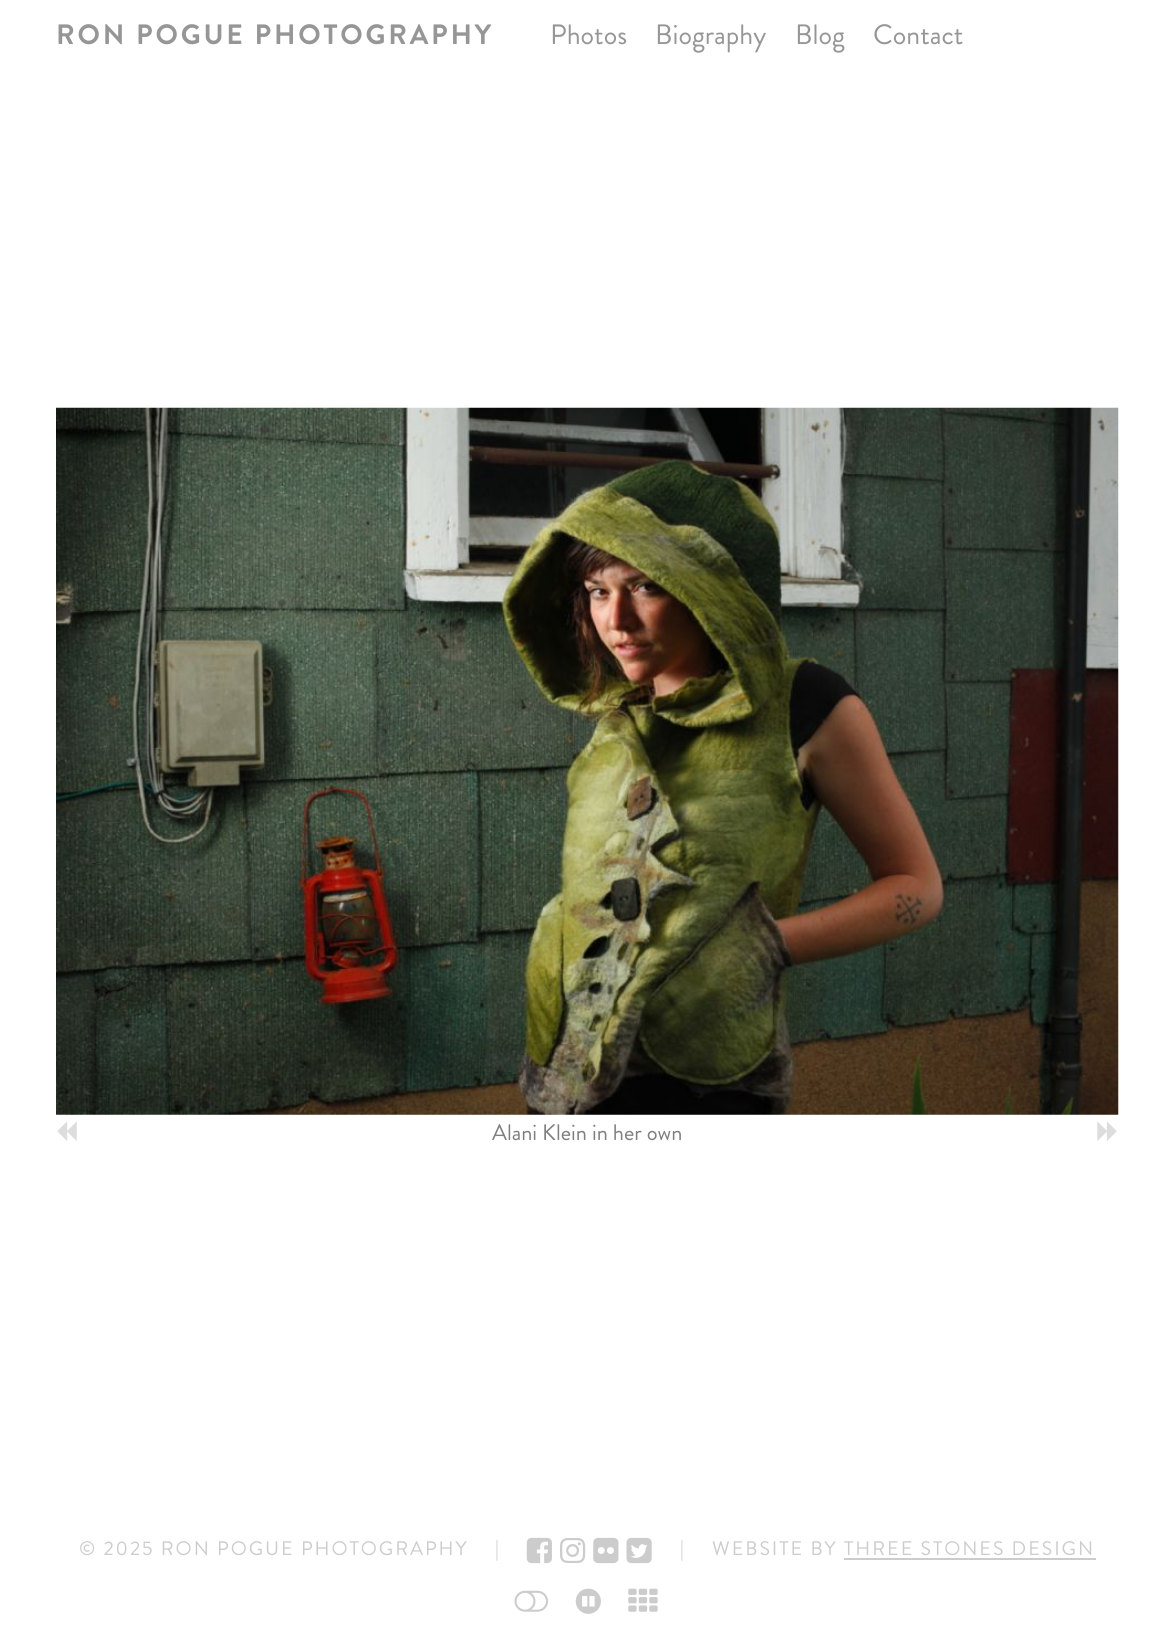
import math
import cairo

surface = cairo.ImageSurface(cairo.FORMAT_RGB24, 1174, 1645)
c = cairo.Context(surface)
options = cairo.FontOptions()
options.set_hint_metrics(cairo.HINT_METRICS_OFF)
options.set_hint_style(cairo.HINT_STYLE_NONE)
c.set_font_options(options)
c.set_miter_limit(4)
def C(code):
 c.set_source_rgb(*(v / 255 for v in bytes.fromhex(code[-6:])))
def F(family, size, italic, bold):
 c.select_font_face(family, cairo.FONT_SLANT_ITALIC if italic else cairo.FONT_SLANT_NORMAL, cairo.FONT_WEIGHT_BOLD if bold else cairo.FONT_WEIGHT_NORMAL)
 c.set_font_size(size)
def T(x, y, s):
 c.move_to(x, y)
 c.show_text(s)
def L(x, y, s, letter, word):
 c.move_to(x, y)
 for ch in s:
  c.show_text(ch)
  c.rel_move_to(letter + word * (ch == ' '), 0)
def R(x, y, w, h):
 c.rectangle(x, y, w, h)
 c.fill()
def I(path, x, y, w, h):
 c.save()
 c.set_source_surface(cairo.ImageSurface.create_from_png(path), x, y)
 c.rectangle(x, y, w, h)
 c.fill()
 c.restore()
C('ffffff')
c.paint()
F('Brandon Grotesque',28,0,1)
C('969696')
L(56,44,'RON POGUE PHOTOGRAPHY',2.8,0)
F('Brandon Grotesque',28,0,0)
T(550,44,'Photos')
T(655,44,'Biography')
T(795,44,'Blog')
T(873,44,'Contact')
I('1.png',56,407,1063,708)
I('2.png',57,1121,20,20)
F('Brandon Grotesque',22.5,0,0)
C('7f7f7f')
T(492,1140,'Alani Klein in her own')
I('3.png',1097,1121,20,20)
F('Brandon Grotesque',19.6,0,0)
C('cccccc')
L(79,1555,'© 2025 RON POGUE PHOTOGRAPHY',1.95,0)
L(495,1555,'|',1.95,0)
I('4.png',526,1537,26,27)
I('5.png',560,1538,26,25)
I('6.png',593,1537,26,27)
I('7.png',626,1537,26,27)
L(680,1555,'|',1.95,0)
L(712,1555,'WEBSITE BY THREE STONES DESIGN',1.95,0)
R(844,1558,252,2)
I('8.png',514,1590,34,22)
I('9.png',575,1588,26,26)
I('10.png',628,1588,30,24)
surface.write_to_png('o.png')
